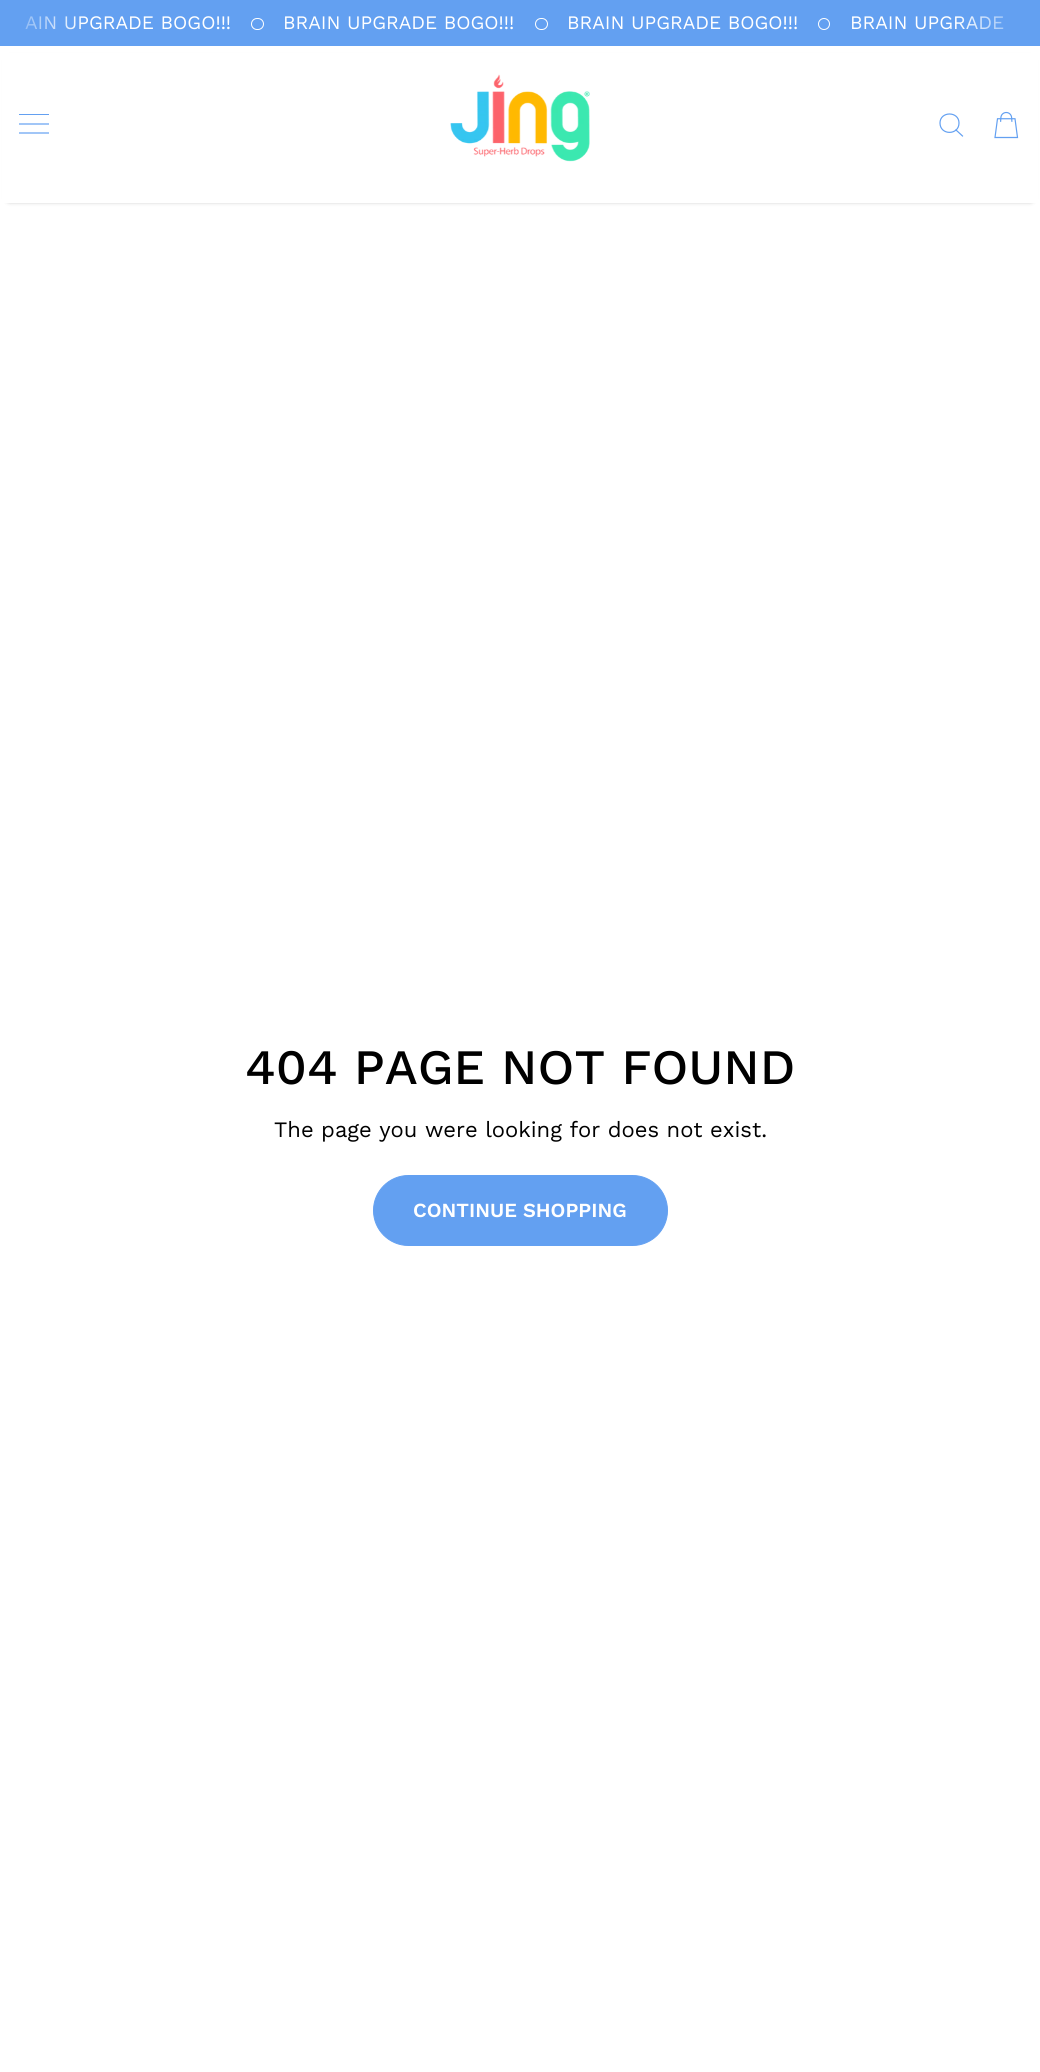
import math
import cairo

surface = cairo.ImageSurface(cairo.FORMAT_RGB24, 1040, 2072)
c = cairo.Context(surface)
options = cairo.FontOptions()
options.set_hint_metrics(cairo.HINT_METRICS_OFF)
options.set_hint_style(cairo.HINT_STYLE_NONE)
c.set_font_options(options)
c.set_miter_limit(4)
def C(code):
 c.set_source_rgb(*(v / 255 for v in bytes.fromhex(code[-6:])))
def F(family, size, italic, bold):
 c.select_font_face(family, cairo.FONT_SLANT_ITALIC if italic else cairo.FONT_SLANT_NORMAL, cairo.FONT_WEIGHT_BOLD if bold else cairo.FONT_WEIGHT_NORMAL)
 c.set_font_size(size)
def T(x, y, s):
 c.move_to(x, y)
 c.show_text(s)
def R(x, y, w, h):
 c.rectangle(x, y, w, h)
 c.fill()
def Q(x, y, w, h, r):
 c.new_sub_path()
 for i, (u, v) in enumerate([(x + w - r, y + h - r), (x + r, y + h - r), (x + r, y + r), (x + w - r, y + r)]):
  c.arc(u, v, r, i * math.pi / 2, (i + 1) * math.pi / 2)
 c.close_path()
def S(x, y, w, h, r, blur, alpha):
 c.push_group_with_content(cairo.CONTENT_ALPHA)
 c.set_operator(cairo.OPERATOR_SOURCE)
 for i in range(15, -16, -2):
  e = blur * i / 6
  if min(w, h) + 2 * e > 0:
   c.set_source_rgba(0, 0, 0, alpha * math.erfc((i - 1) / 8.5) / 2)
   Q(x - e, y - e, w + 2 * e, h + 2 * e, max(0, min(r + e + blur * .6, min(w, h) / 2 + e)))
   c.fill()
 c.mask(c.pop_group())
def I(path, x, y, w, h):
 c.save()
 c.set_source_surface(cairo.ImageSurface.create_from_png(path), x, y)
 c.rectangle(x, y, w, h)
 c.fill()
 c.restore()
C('ffffff')
c.paint()
C('63a0f1')
R(0,0,1040,46)
F('Work Sans',19.1,0,0)
C('ffffff')
T(25,29,'AIN UPGRADE BOGO!!!')
Q(251.5,18.5,12,11,5.5)
c.set_line_width(1)
c.stroke()
gradient = cairo.LinearGradient(84,23,-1.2,23)
gradient.add_color_stop_rgba(0,0.388,0.627,0.945,0)
gradient.add_color_stop_rgba(1,0.388,0.627,0.945,1)
c.set_source(gradient)
R(25,16,57,14)
C('ffffff')
T(283,29,'BRAIN UPGRADE BOGO!!!')
Q(535.5,18.5,12,11,5.5)
c.stroke()
T(567,29,'BRAIN UPGRADE BOGO!!!')
c.new_path()
c.arc(824,24,5.5,0,2 * math.pi)
c.stroke()
T(850,29,'BRAIN UPGRADE')
gradient = cairo.LinearGradient(956,23,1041,23)
gradient.add_color_stop_rgba(0,0.388,0.627,0.945,0)
gradient.add_color_stop_rgba(1,0.388,0.627,0.945,1)
c.set_source(gradient)
R(958,16,46,13)
C('000000')
S(9,60,1022,139,0,3,1)
C('ffffff')
R(2,53,1036,150)
C('63a0f1')
R(19,114,30,1)
c.new_path()
c.move_to(19,124)
c.line_to(49,124)
c.move_to(19,133)
c.line_to(49,133)
c.set_line_width(1.2)
c.stroke()
I('1.png',450,74,140,88)
c.new_path()
c.move_to(956,130)
c.line_to(962.5,136)
c.set_line_cap(cairo.LINE_CAP_SQUARE)
c.set_line_join(cairo.LINE_JOIN_ROUND)
c.stroke()
c.new_path()
c.move_to(959,123)
c.curve_to(959,111,940,111,940,123)
c.curve_to(940,135.5,959,135.5,959,123)
c.close_path()
c.set_line_cap(cairo.LINE_CAP_ROUND)
c.stroke()
I('2.png',994,111,25,28)
F('Work Sans Medium',49.5,0,0)
C('000000')
T(245,1084,'404 PAGE NOT FOUND')
F('Work Sans',22,0,0)
T(274,1137,'The page you were looking for does not exist.')
C('63a0f1')
Q(373.5,1175.5,294,70,35)
c.fill_preserve()
c.set_line_width(1)
c.set_line_cap(cairo.LINE_CAP_BUTT)
c.set_line_join(cairo.LINE_JOIN_MITER)
c.stroke()
F('Work Sans SemiBold',20,0,0)
C('ffffff')
T(413,1217,'CONTINUE SHOPPING')
surface.write_to_png('o.png')
